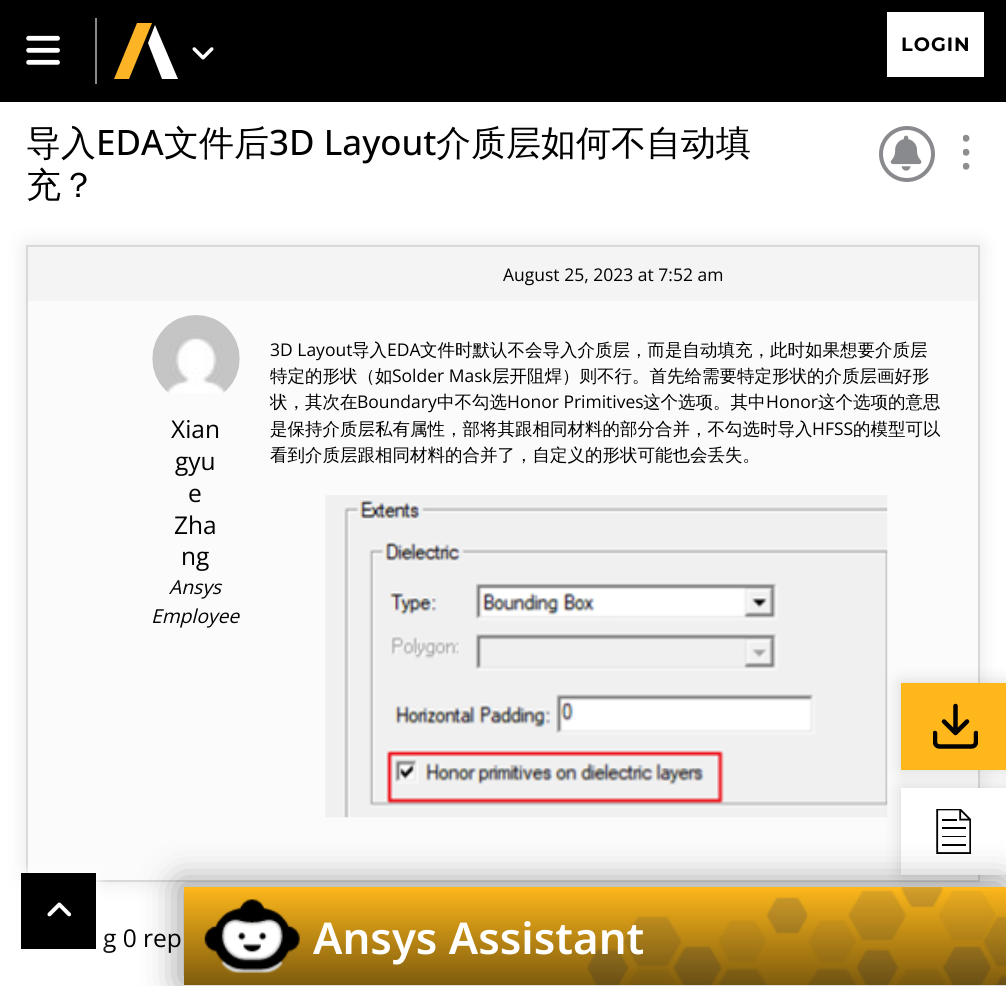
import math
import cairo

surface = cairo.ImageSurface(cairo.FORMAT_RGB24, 1006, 986)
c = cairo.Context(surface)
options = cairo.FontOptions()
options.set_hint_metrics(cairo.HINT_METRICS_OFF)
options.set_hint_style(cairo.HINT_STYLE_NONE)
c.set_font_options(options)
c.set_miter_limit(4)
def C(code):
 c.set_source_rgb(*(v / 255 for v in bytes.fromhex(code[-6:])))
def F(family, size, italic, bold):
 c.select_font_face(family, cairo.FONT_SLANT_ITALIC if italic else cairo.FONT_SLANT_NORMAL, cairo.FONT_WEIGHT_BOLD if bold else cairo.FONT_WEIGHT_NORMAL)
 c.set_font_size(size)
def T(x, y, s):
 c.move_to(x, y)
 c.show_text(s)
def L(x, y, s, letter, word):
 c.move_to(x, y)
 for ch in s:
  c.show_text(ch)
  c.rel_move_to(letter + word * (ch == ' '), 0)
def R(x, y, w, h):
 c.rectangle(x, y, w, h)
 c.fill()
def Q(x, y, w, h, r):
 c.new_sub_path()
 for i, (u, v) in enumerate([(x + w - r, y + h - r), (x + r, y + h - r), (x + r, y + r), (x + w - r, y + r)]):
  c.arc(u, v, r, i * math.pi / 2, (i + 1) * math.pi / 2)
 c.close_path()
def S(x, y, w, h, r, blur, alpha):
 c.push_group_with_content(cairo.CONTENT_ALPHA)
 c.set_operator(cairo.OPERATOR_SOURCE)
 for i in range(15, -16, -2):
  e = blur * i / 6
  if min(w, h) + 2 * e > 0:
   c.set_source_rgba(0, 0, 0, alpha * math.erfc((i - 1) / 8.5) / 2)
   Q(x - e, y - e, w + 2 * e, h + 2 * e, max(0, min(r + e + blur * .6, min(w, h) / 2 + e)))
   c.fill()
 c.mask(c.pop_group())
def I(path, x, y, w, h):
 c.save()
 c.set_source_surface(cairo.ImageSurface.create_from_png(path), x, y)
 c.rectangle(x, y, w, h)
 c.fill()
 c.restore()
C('ffffff')
c.paint()
C('000000')
R(0,0,1006,102)
I('1.png',26,35,34,30)
C('898a8d')
R(95,18,2,66)
C('fcb326')
c.new_path()
c.move_to(114,79)
c.line_to(137,23)
c.line_to(152,23)
c.line_to(129,79)
c.close_path()
c.fill()
C('ffffff')
c.new_path()
c.move_to(178,79)
c.line_to(162,79)
c.line_to(148,43)
c.line_to(155,25)
c.close_path()
c.fill()
I('2.png',192,47,22,13)
R(887,12,97,65)
F('Montserrat',19.25,0,1)
C('000000')
L(901,51,'LOGIN',1,0)
F('WenQuanYi Zen Hei Medium',35,0,0)
T(26,155,'导入')
F('Open Sans Medium',35,0,0)
T(96,155,'EDA')
F('WenQuanYi Zen Hei Medium',35,0,0)
T(164,155,'文件后')
F('Open Sans Medium',35,0,0)
T(269,155,'3D Layout')
F('WenQuanYi Zen Hei Medium',35,0,0)
T(436,155,'介质层如何不自动填')
T(26,197,'充？')
c.new_path()
c.arc(907,154,26,0,2 * math.pi)
C('898a8d')
c.set_line_width(4)
c.stroke()
I('3.png',890,135,32,36)
I('4.png',963,134,7,36)
C('000000')
S(26,245,954,637,0,10.5,.1)
c.rectangle(27,246,952,635)
C('d9d9d9')
c.set_line_width(2)
c.stroke()
C('f4f4f4')
R(28,247,950,54)
F('Open Sans',17.5,0,0)
C('000000')
T(503,281,'August 25, 2023 at 7:52 am')
C('fbfbfb')
R(28,301,950,579)
C('000000')
T(270,356,'3D Layout')
F('WenQuanYi Zen Hei Medium',17.5,0,0)
T(352,356,'导入')
F('Open Sans',17.5,0,0)
T(387,356,'EDA')
F('WenQuanYi Zen Hei Medium',17.5,0,0)
T(420,356,'文件时默认不会导入介质层，而是自动填充，此时如果想要介质层')
T(270,382,'特定的形状（如')
F('Open Sans',17.5,0,0)
T(392,382,'Solder Mask')
F('WenQuanYi Zen Hei Medium',17.5,0,0)
T(492,382,'层开阻焊）则不行。首先给需要特定形状的介质层画好形')
T(270,408,'状，其次在')
F('Open Sans',17.5,0,0)
T(357,408,'Boundary')
F('WenQuanYi Zen Hei Medium',17.5,0,0)
T(437,408,'中不勾选')
F('Open Sans',17.5,0,0)
T(507,408,'Honor Primitives')
F('WenQuanYi Zen Hei Medium',17.5,0,0)
T(643,408,'这个选项。其中')
F('Open Sans',17.5,0,0)
T(766,408,'Honor')
F('WenQuanYi Zen Hei Medium',17.5,0,0)
T(818,408,'这个选项的意思')
T(270,435,'是保持介质层私有属性，部将其跟相同材料的部分合并，不勾选时导入')
F('Open Sans',17.5,0,0)
T(812,435,'HFSS')
F('WenQuanYi Zen Hei Medium',17.5,0,0)
T(853,435,'的模型可以')
T(270,461,'看到介质层跟相同材料的合并了，自定义的形状可能也会丢失。')
I('5.png',325,495,563,323)
I('6.png',152,315,88,78)
F('Open Sans',24.5,0,0)
T(171,438,'Xian')
T(175,470,'gyu')
T(188,502,'e')
T(174,534,'Zha')
T(181,565,'ng')
F('Open Sans',19.25,1,0)
T(169,594,'Ansys')
T(151,623,'Employee')
F('Open Sans',24.5,0,0)
T(103,947,'g 0 rep')
C('ffffff')
S(19,872,79,78,0,6,1)
C('000000')
R(21,873,75,76)
I('7.png',47,902,25,15)
C('000000')
S(901,683,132,87,0,9,.15)
C('ffb71b')
R(901,683,105,87)
C('000000')
S(901,788,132,87,0,9,.15)
C('ffffff')
R(901,788,105,87)
I('10.png',936,809,35,45)
C('000000')
S(180,884,823,100,0,18.5,.41)
C('fdb71b')
R(184,887,822,98)
I('8.png',587,887,419,98)
C('dddddd')
R(184,985,822,1)
gradient = cairo.LinearGradient(595,887,595,985)
gradient.add_color_stop_rgba(0,0,0,0,0)
gradient.add_color_stop_rgba(1,0,0,0,.5)
c.set_source(gradient)
R(184,891,822,94)
I('9.png',204,899,96,74)
F('Noto Sans SemiBold',43.75,0,0)
C('ffffff')
T(313,954,'Ansys Assistant')
c.save()
c.rectangle(933,704,45,45)
c.clip()
c.new_path()
c.move_to(976,733)
c.line_to(976,742)
c.curve_to(976,744.5,974,746.5,971.5,746.5)
c.line_to(939.5,746.5)
c.curve_to(937,746.5,935,744.5,935,742)
c.line_to(935,733)
C('000000')
c.set_line_width(4.5)
c.set_line_cap(cairo.LINE_CAP_ROUND)
c.set_line_join(cairo.LINE_JOIN_ROUND)
c.stroke()
c.restore()
c.new_path()
c.move_to(944,721.5)
c.line_to(955.5,733)
c.line_to(967,721.5)
c.move_to(955.5,733)
c.line_to(955.5,706)
C('000000')
c.set_line_width(4.5)
c.set_line_cap(cairo.LINE_CAP_ROUND)
c.set_line_join(cairo.LINE_JOIN_ROUND)
c.stroke()
surface.write_to_png('o.png')
